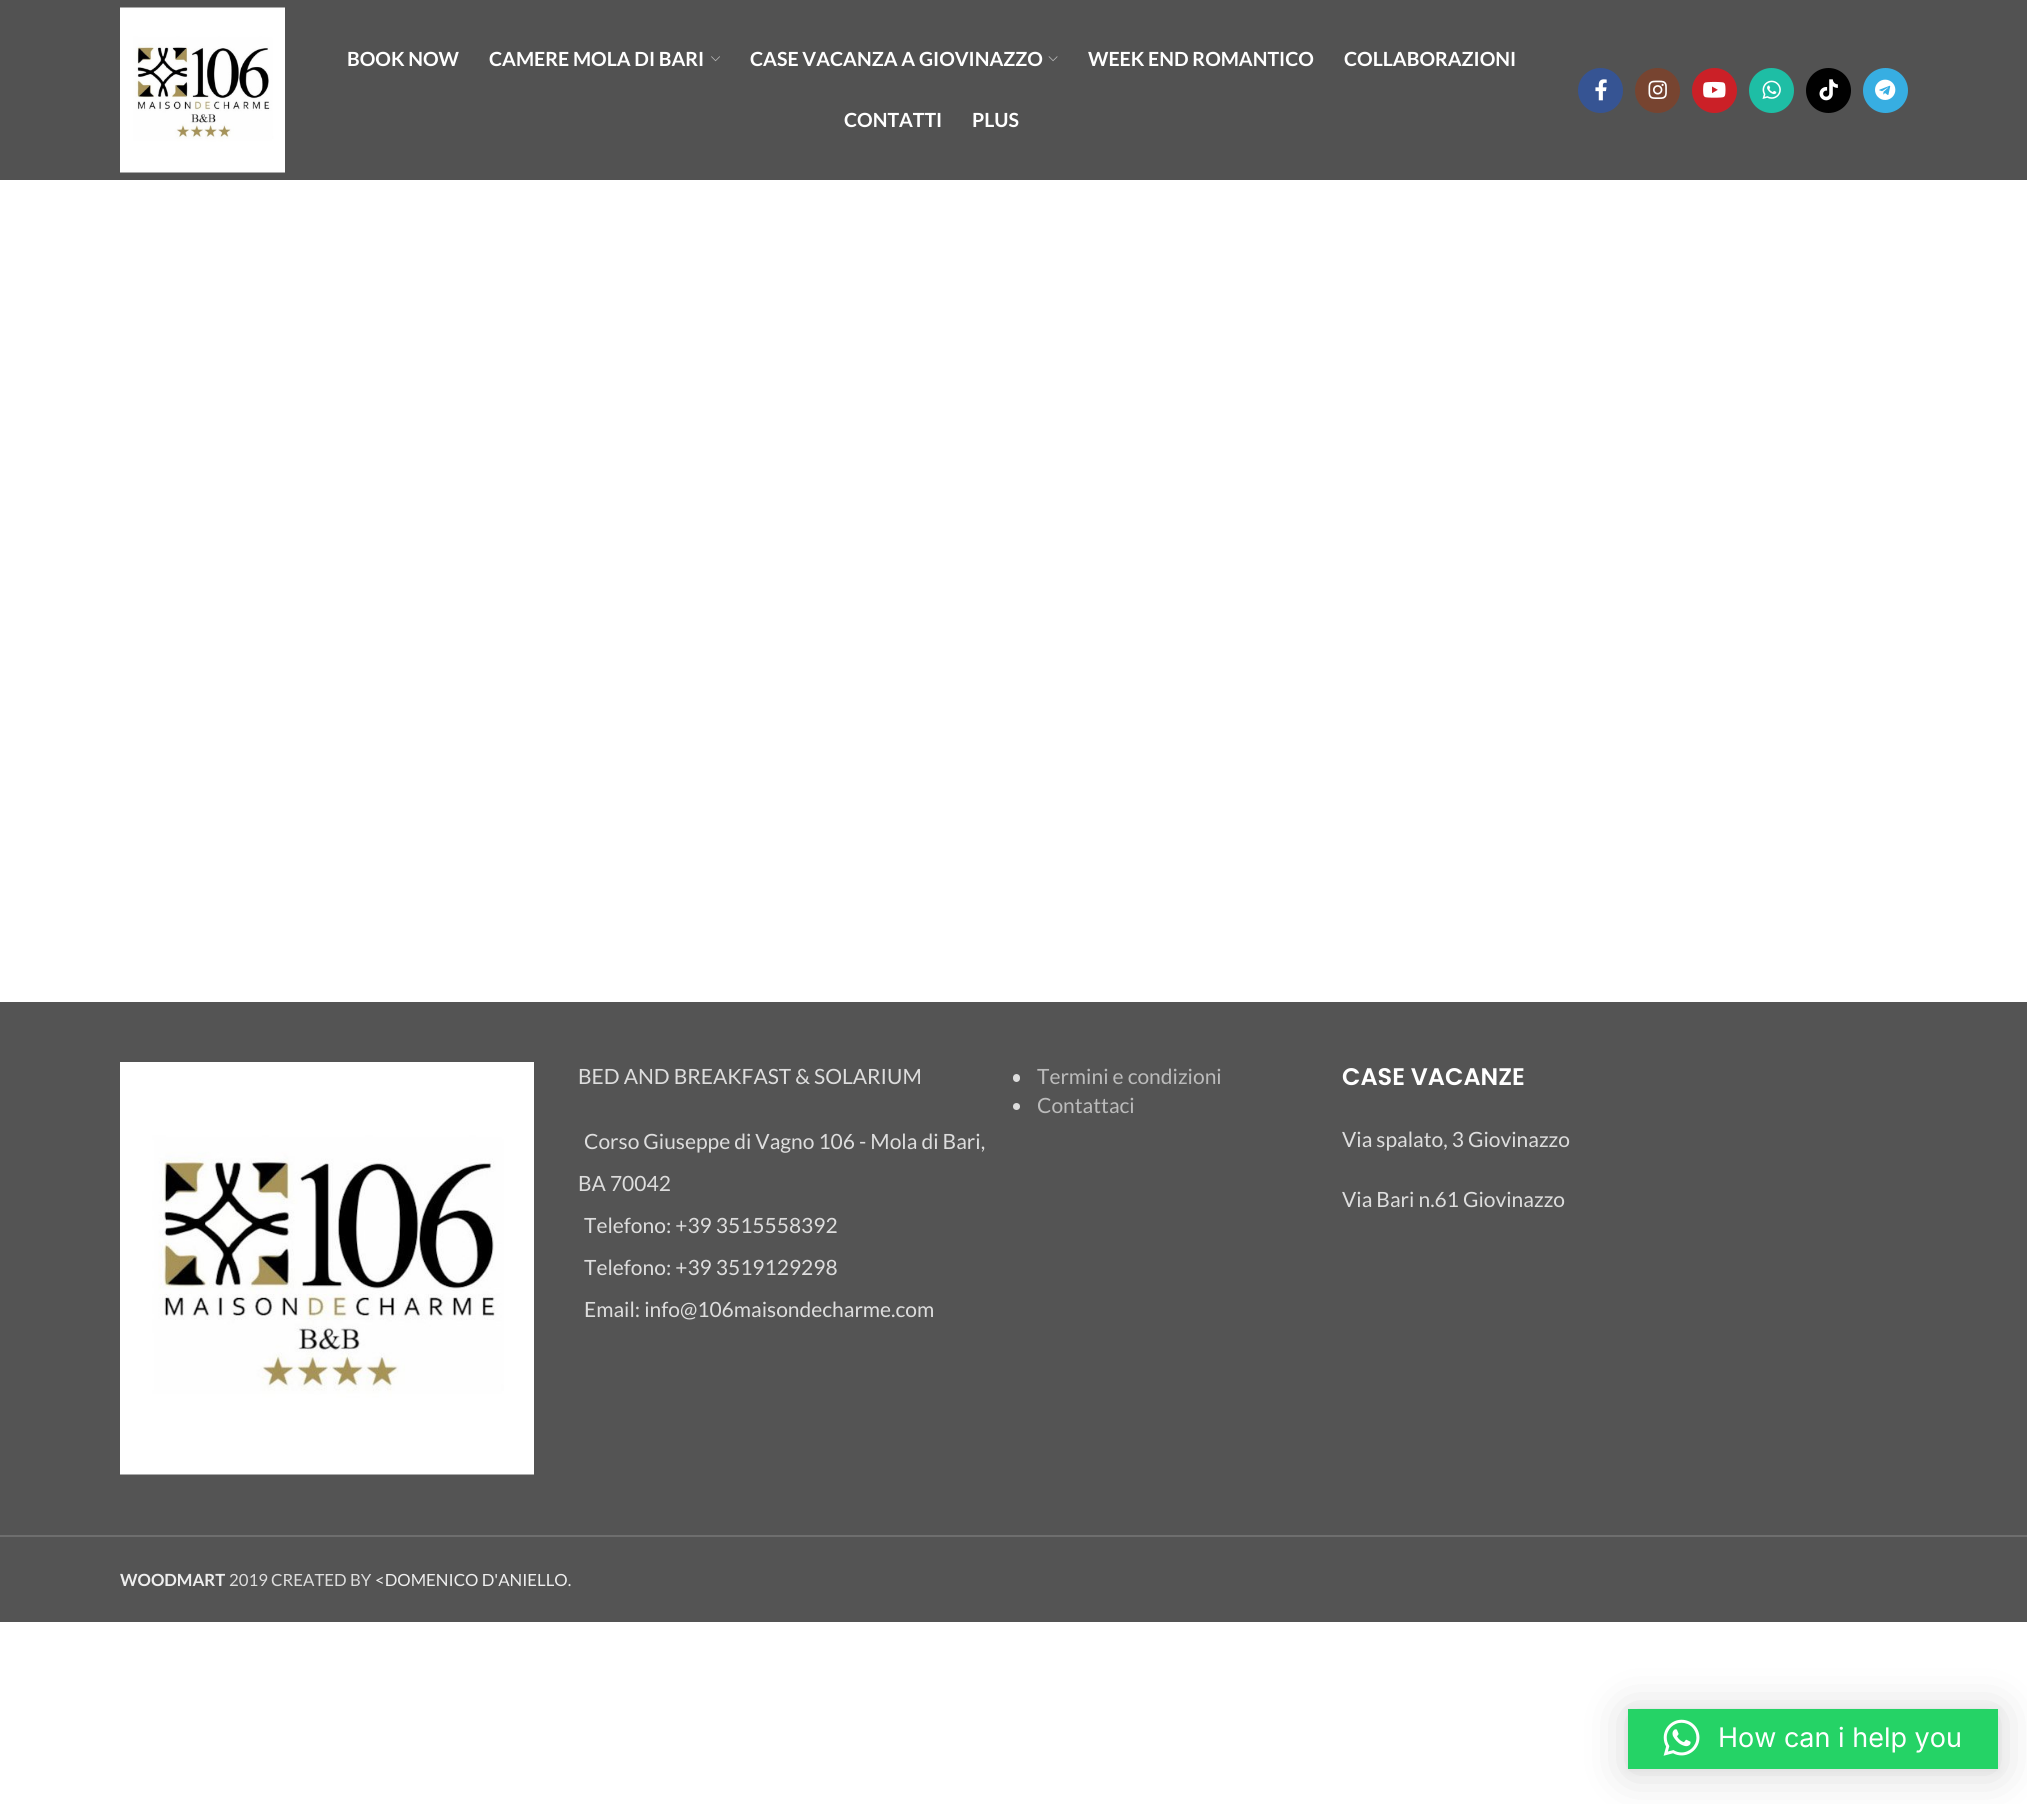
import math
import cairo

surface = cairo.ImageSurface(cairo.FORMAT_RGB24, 2027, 1804)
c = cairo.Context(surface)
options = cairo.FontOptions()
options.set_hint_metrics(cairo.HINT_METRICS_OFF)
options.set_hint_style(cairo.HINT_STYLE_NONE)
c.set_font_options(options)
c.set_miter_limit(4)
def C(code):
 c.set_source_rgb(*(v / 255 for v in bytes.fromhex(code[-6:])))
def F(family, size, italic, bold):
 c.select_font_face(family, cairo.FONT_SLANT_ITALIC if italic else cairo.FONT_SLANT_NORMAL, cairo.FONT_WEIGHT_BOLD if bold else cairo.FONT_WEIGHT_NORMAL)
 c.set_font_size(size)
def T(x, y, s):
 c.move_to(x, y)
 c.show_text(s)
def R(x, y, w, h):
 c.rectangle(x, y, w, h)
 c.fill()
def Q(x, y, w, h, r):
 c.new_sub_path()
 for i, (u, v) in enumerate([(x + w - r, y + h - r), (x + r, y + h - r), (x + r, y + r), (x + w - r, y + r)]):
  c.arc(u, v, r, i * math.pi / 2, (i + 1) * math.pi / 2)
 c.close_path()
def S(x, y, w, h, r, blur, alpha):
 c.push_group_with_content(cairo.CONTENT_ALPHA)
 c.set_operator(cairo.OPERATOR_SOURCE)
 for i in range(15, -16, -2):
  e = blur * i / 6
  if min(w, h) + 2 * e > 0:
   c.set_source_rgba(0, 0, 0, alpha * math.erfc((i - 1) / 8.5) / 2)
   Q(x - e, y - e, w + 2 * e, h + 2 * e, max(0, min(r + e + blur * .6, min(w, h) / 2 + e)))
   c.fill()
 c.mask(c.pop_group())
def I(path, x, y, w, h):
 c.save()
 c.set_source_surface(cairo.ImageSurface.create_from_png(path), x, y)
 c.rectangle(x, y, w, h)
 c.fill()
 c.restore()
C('ffffff')
c.paint()
C('525252')
R(0,0,2027,180)
I('1.png',120,7,165,166)
F('Lato',19.5,0,1)
C('ffffff')
T(347,66,'BOOK NOW')
T(489,66,'CAMERE MOLA DI BARI')
I('2.png',711,56,9,6)
T(750,66,'CASE VACANZA A GIOVINAZZO')
I('3.png',1048,56,10,6)
T(1088,66,'WEEK END ROMANTICO')
T(1344,66,'COLLABORAZIONI')
T(844,127,'CONTATTI')
T(972,127,'PLUS')
C('365493')
c.new_path()
c.arc(1600.5,90.5,22.5,0,2 * math.pi)
c.fill()
I('4.png',1595,79,12,22)
C('774430')
c.arc(1657.5,90.5,22.5,0,2 * math.pi)
c.fill()
I('5.png',1648,80,19,19)
C('cb2027')
c.arc(1714.5,90.5,22.5,0,2 * math.pi)
c.fill()
I('6.png',1703,81,23,17)
C('1ebea5')
c.arc(1771.5,90.5,22.5,0,2 * math.pi)
c.fill()
I('7.png',1762,80,19,19)
C('010101')
c.arc(1828.5,90.5,22.5,0,2 * math.pi)
c.fill()
I('8.png',1819,79,19,22)
C('37aee2')
c.arc(1885.5,90.5,22.5,0,2 * math.pi)
c.fill()
I('9.png',1875,79,21,21)
C('545454')
R(0,1002,2027,620)
I('10.png',120,1062,414,413)
F('Lato',21,0,0)
C('dddddd')
T(578,1084,'BED AND BREAKFAST & SOLARIUM')
T(584,1149,'Corso Giuseppe di Vagno 106 - Mola di Bari,')
T(578,1191,'BA 70042')
T(584,1233,'Telefono: +39 3515558392')
T(584,1275,'Telefono: +39 3519129298')
T(584,1317,'Email: info@106maisondecharme.com')
Q(1013,1074,7,8,3.5)
c.fill()
C('bbbbbb')
T(1037,1084,'Termini e condizioni')
C('dddddd')
c.new_path()
c.arc(1016.5,1106.5,3.5,0,2 * math.pi)
c.fill()
C('bbbbbb')
T(1037,1113,'Contattaci')
F('Poppins SemiBold',24,0,0)
C('ffffff')
T(1342,1085,'CASE VACANZE')
F('Lato',21,0,0)
C('dddddd')
T(1342,1147,'Via spalato, 3 Giovinazzo')
T(1342,1207,'Via Bari n.61 Giovinazzo')
C('6e6e6e')
R(0,1535,2027,2)
F('Lato',16.75,0,1)
C('eeeeee')
T(120,1586,'WOODMART')
F('Lato',16.75,0,0)
C('dddddd')
T(229,1586,'2019 CREATED BY')
C('eeeeee')
T(375,1586,'<DOMENICO D\'ANIELLO.')
C('000000')
S(1628,1712,370,60,0,24,.16)
S(1628,1710,370,60,0,4.5,.06)
C('25d366')
R(1628,1709,370,60)
I('11.png',1663,1719,37,37)
F('Inter',27,0,0)
C('ffffff')
T(1718,1747,'How can i help you')
surface.write_to_png('o.png')
